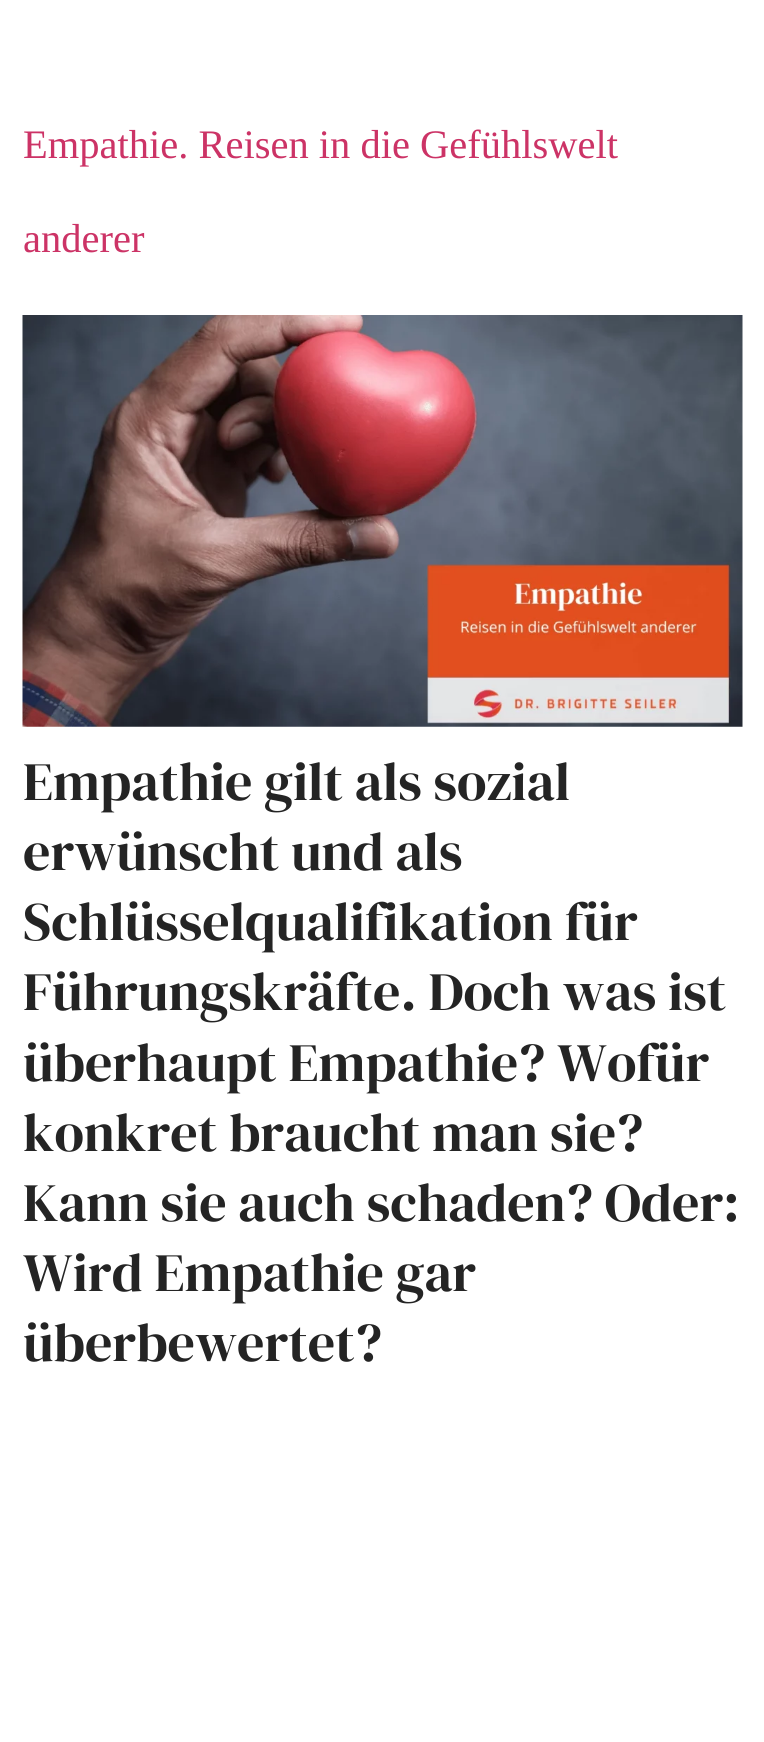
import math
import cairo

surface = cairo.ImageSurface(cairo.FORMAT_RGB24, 764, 1742)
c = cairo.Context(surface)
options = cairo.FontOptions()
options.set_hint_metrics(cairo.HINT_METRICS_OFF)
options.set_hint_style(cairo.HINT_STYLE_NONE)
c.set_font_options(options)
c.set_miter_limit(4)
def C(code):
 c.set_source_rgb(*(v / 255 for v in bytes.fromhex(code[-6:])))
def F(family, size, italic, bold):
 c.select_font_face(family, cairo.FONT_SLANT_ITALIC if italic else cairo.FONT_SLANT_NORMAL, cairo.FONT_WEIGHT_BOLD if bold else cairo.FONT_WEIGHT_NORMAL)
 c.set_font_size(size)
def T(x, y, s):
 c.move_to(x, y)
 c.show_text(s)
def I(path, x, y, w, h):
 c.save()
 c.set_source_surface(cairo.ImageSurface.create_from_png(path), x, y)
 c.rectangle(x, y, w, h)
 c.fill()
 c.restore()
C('ffffff')
c.paint()
F('Liberation Serif',40.5,0,0)
C('cc3366')
T(23,158,'Empathie. Reisen in die Gefühlswelt')
T(23,252,'anderer')
I('1.png',22,315,721,412)
F('DM Serif Display',54,0,0)
C('242424')
T(23,800,'Empathie gilt als sozial')
T(23,870,'erwünscht und als')
T(23,940,'Schlüsselqualifikation für')
T(23,1010,'Führungskräfte. Doch was ist')
T(23,1081,'überhaupt Empathie? Wofür')
T(23,1151,'konkret braucht man sie?')
T(23,1221,'Kann sie auch schaden? Oder:')
T(23,1291,'Wird Empathie gar')
T(23,1361,'überbewertet?')
surface.write_to_png('o.png')
